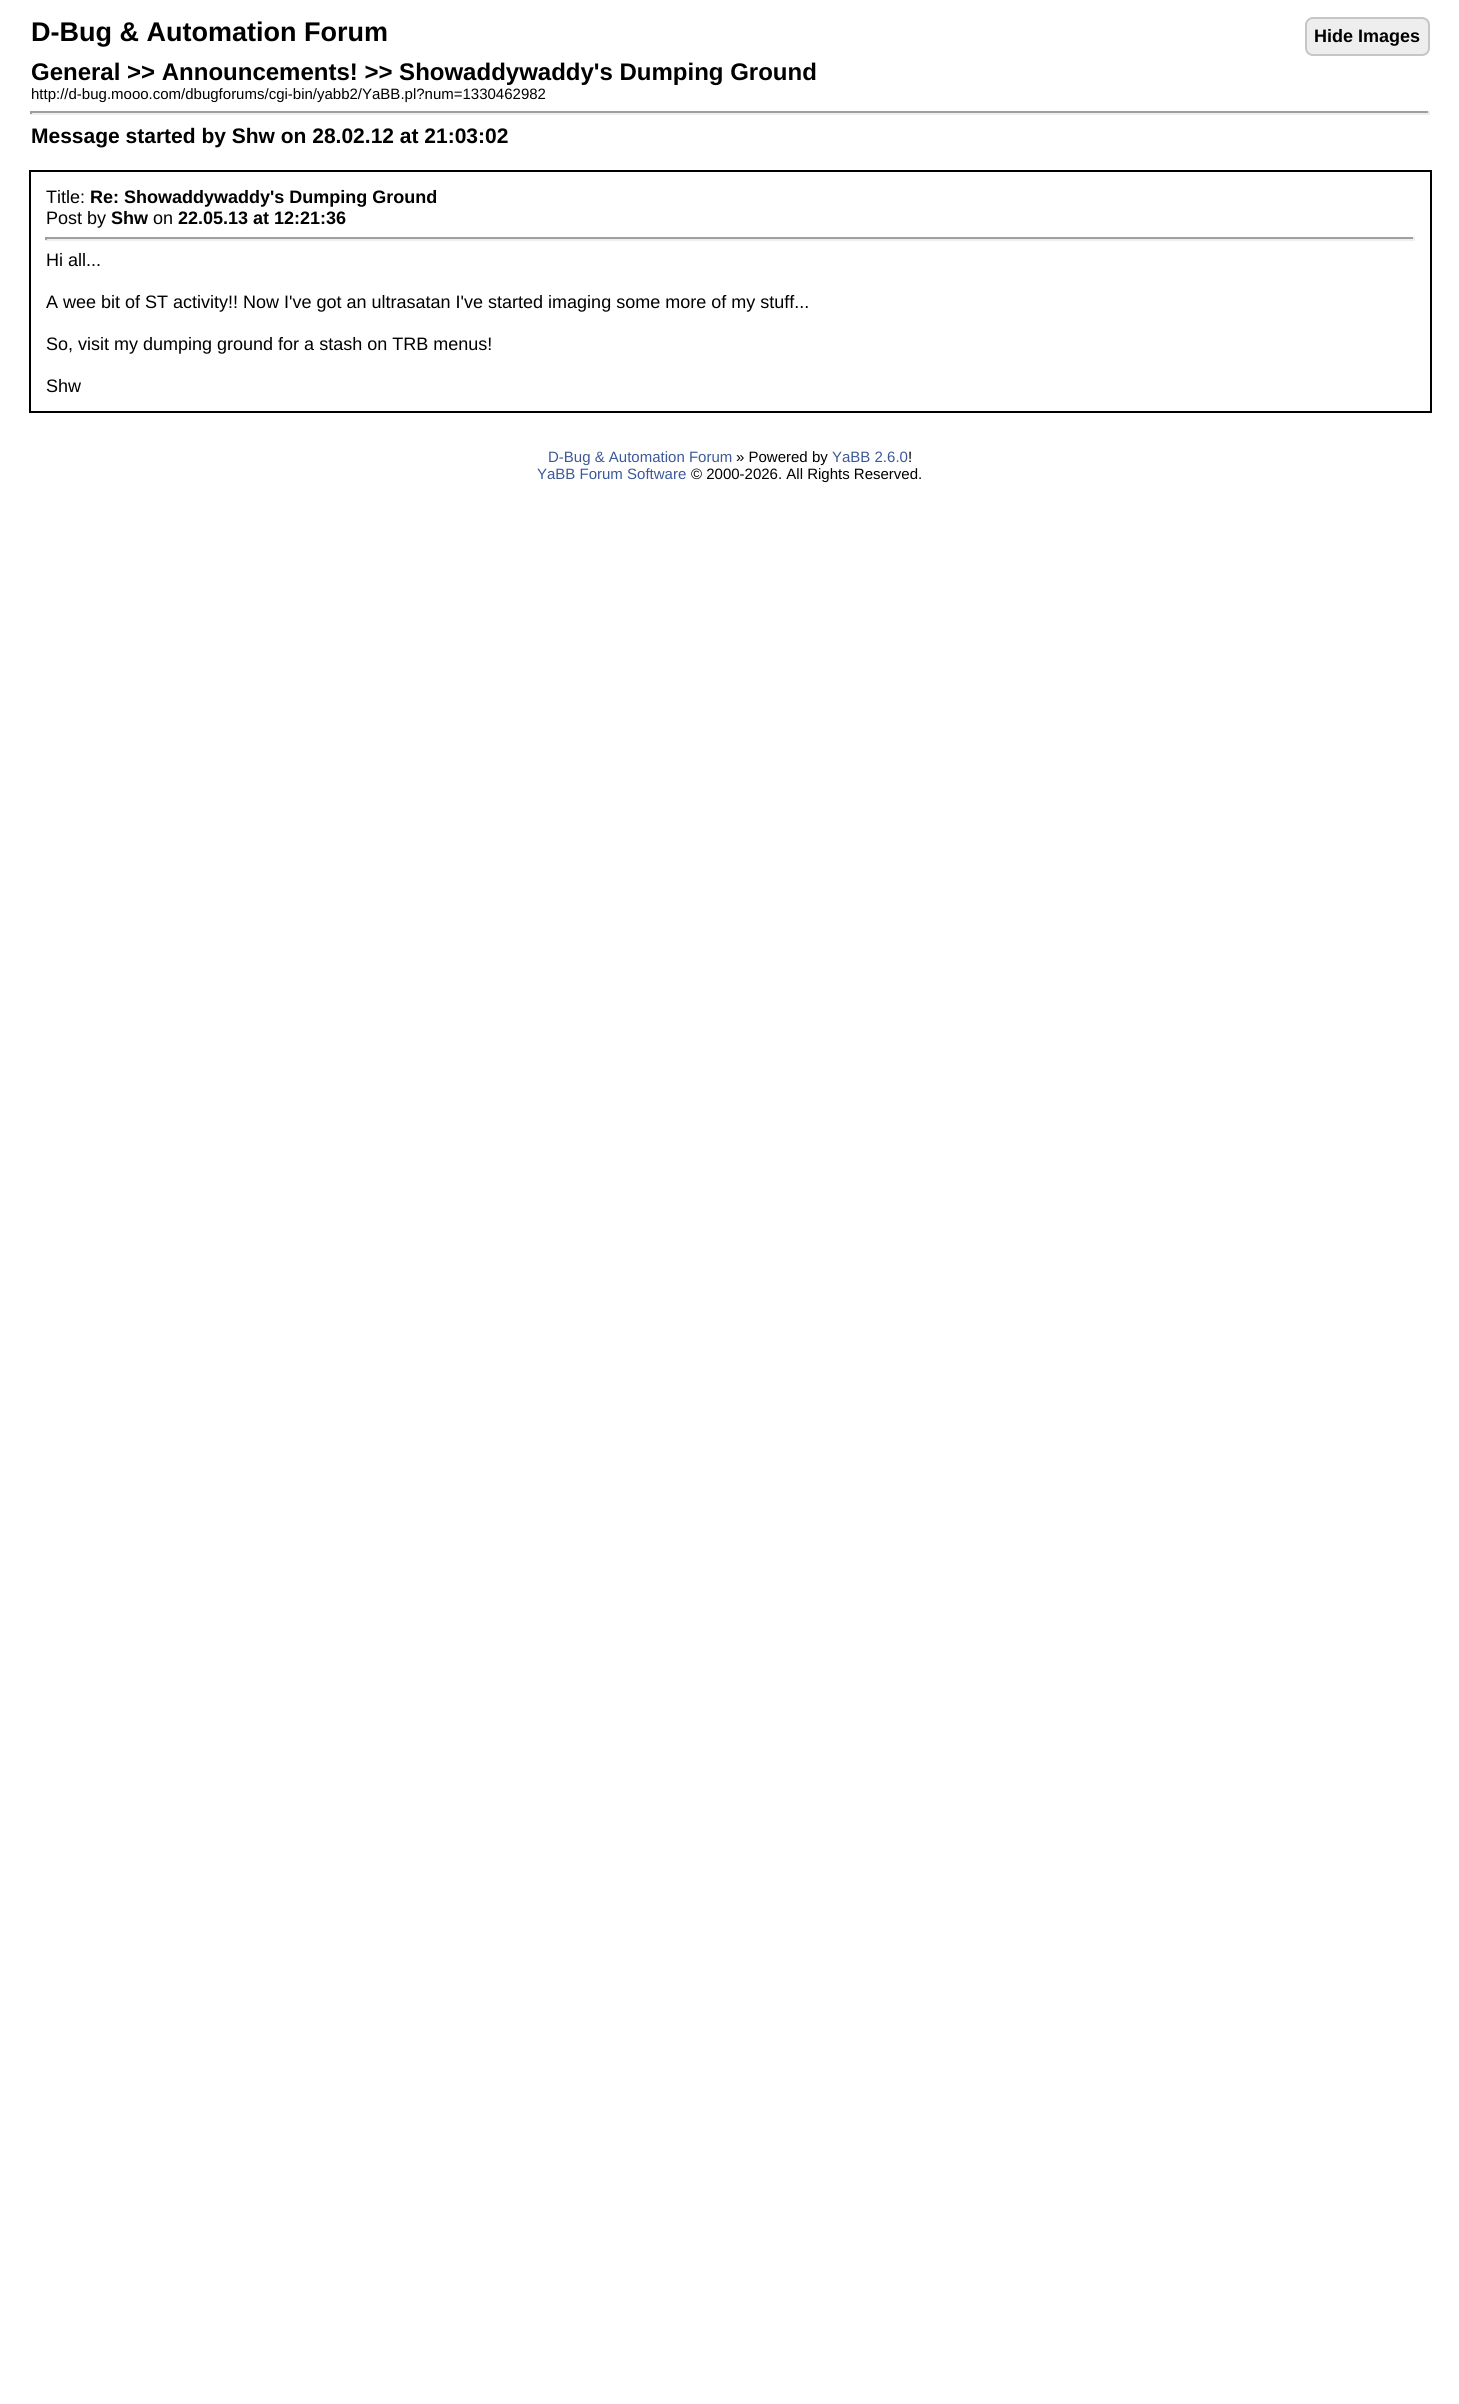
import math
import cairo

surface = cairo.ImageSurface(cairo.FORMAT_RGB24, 1459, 2404)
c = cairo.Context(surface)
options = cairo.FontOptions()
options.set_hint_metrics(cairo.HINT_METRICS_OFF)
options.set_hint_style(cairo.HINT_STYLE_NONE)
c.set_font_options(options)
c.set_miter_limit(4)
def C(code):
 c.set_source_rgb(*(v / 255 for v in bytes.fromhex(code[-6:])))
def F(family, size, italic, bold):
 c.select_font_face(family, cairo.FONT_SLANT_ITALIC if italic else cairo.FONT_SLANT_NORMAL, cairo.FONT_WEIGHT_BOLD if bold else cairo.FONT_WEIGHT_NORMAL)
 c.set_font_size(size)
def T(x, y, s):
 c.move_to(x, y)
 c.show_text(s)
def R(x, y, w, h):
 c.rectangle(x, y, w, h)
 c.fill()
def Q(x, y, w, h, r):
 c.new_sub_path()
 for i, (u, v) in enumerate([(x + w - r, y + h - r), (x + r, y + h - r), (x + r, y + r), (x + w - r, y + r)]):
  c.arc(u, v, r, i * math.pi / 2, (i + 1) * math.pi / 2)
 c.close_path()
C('ffffff')
c.paint()
F('Liberation Sans',27,0,1)
C('000000')
T(31,41,'D-Bug & Automation Forum')
C('eeeeee')
Q(1306,18,123,37,7)
c.fill_preserve()
C('c6c6c6')
c.stroke()
F('Liberation Sans',18,0,1)
C('000000')
T(1314,42,'Hide Images')
F('Liberation Sans',24,0,1)
T(31,80,'General >> Announcements! >> Showaddywaddy\'s Dumping Ground')
F('Liberation Sans',15,0,0)
T(31,99,'http://d-bug.mooo.com/dbugforums/cgi-bin/yabb2/YaBB.pl?num=1330462982')
C('9f9f9f')
R(30,111,1400,2)
C('eeeeee')
R(1428,111,2,3)
R(30,113,1400,2)
C('9f9f9f')
R(30,111,2,3)
F('Liberation Sans',21,0,1)
C('000000')
T(31,143,'Message started by Shw on 28.02.12 at 21:03:02')
R(29,170,1402,2)
R(1430,170,2,243)
R(29,411,1402,2)
R(29,170,2,243)
F('Liberation Sans',18,0,0)
T(46,203,'Title:')
F('Liberation Sans',18,0,1)
T(90,203,'Re: Showaddywaddy\'s Dumping Ground')
F('Liberation Sans',18,0,0)
T(46,224,'Post by')
F('Liberation Sans',18,0,1)
T(111,224,'Shw')
F('Liberation Sans',18,0,0)
T(153,224,'on')
F('Liberation Sans',18,0,1)
T(178,224,'22.05.13 at 12:21:36')
C('9f9f9f')
R(45,237,1370,2)
C('eeeeee')
R(1413,237,2,3)
R(45,239,1370,2)
C('9f9f9f')
R(45,237,2,3)
F('Liberation Sans',18,0,0)
C('000000')
T(46,266,'Hi all...')
T(46,308,'A wee bit of ST activity!! Now I\'ve got an ultrasatan I\'ve started imaging some more of my stuff...')
T(46,350,'So, visit my dumping ground for a stash on TRB menus!')
T(46,392,'Shw')
F('Liberation Sans',15,0,0)
C('3b5998')
T(548,462,'D-Bug & Automation Forum')
C('000000')
T(736,462,'» Powered by')
C('3b5998')
T(832,462,'YaBB 2.6.0')
C('000000')
T(908,462,'!')
C('3b5998')
T(537,479,'YaBB Forum Software')
C('000000')
T(691,479,'© 2000-2026. All Rights Reserved.')
surface.write_to_png('o.png')
